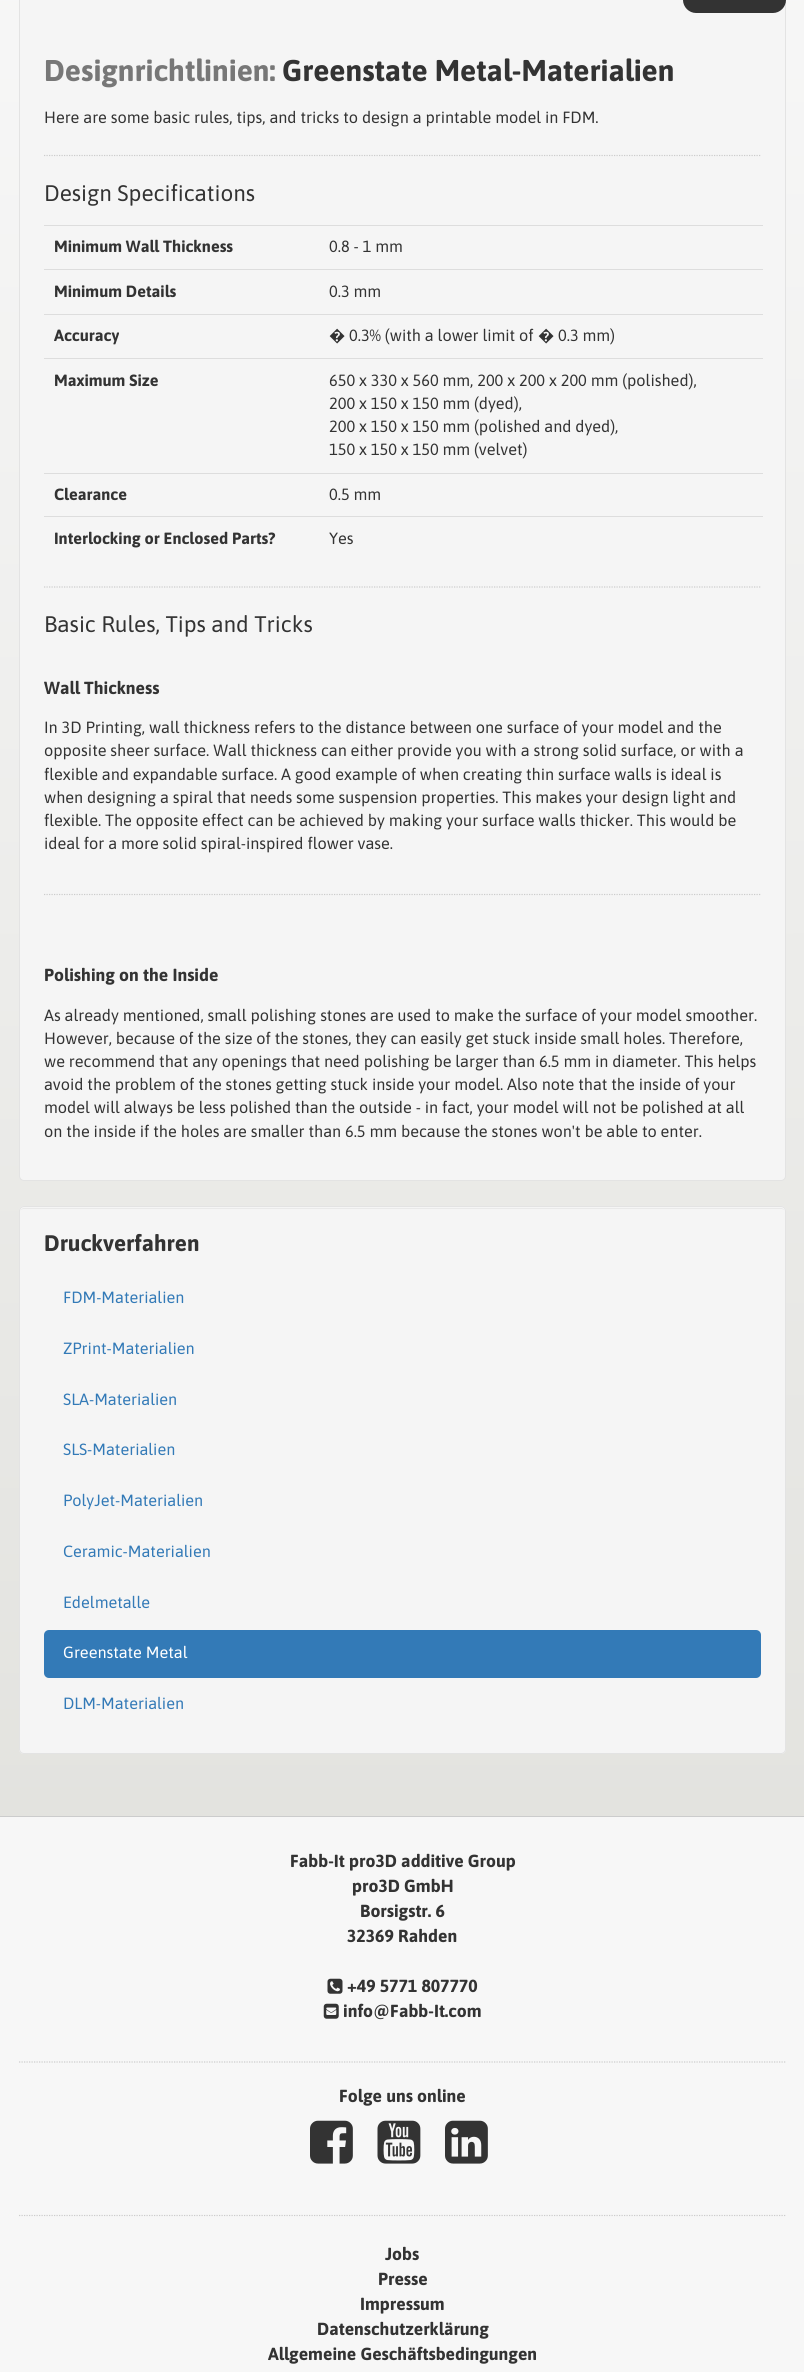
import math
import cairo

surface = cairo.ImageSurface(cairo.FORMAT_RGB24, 804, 2372)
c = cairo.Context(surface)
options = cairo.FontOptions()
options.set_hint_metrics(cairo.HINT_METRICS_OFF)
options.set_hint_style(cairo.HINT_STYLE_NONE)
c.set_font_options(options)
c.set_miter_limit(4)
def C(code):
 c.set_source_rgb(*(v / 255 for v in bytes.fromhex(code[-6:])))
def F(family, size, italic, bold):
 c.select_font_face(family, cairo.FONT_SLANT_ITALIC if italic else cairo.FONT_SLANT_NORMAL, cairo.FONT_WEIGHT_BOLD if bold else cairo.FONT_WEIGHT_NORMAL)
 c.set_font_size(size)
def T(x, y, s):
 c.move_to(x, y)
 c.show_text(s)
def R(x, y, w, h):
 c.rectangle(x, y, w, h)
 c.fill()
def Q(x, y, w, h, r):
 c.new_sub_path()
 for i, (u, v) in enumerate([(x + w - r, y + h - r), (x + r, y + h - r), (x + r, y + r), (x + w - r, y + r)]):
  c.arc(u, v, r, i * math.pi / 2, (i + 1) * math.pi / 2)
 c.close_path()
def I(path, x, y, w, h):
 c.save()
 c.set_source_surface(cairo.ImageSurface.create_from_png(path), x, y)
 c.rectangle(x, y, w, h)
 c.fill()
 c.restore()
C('ffffff')
c.paint()
gradient = cairo.LinearGradient(402,-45,403,1816)
gradient.add_color_stop_rgba(0,0.969,0.969,0.969,1)
gradient.add_color_stop_rgba(1,0.89,0.89,0.875,1)
c.set_source(gradient)
R(0,0,804,1816)
C('f5f5f5')
Q(19.5,-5.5,766,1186,4.5)
c.fill_preserve()
C('e3e3e3')
c.set_line_width(1)
c.stroke()
C('333333')
c.new_path()
c.move_to(683,-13)
c.line_to(786,-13)
c.line_to(786,0)
c.curve_to(786,7,780,13,773,13)
c.line_to(696,13)
c.curve_to(689,13,683,7,683,0)
c.close_path()
c.fill()
F('Asap',30,0,1)
C('777777')
T(44,81,'Designrichtlinien:')
C('333333')
T(282,81,'Greenstate Metal-Materialien')
F('Asap',16.25,0,0)
T(44,123,'Here are some basic rules, tips, and tricks to design a printable model in FDM.')
c.new_path()
c.move_to(44,155.5)
c.line_to(761,155.5)
C('cccccc')
c.set_line_width(1.2)
c.set_dash([1.25,1.25])
c.stroke()
F('Asap',22.5,0,0)
C('333333')
T(44,201,'Design Specifications')
F('Asap',16.25,0,1)
T(54,252,'Minimum Wall Thickness')
C('dddddd')
R(44,225,719,1)
F('Asap',16.25,0,0)
C('333333')
T(329,252,'0.8 - 1 mm')
F('Asap',16.25,0,1)
T(54,297,'Minimum Details')
C('dddddd')
R(44,269,719,1)
F('Asap',16.25,0,0)
C('333333')
T(329,297,'0.3 mm')
F('Asap',16.25,0,1)
T(54,341,'Accuracy')
C('dddddd')
R(44,314,719,1)
F('Noto Sans',16.25,0,0)
C('333333')
T(329,341,'�')
F('Asap',16.25,0,0)
T(349,341,'0.3% (with a lower limit of')
F('Noto Sans',16.25,0,0)
T(538,341,'�')
F('Asap',16.25,0,0)
T(558,341,'0.3 mm)')
F('Asap',16.25,0,1)
T(54,386,'Maximum Size')
C('dddddd')
R(44,358,719,1)
F('Asap',16.25,0,0)
C('333333')
T(329,386,'650 x 330 x 560 mm, 200 x 200 x 200 mm (polished),')
T(329,409,'200 x 150 x 150 mm (dyed),')
T(329,432,'200 x 150 x 150 mm (polished and dyed),')
T(329,455,'150 x 150 x 150 mm (velvet)')
F('Asap',16.25,0,1)
T(54,500,'Clearance')
C('dddddd')
R(44,473,719,1)
F('Asap',16.25,0,0)
C('333333')
T(329,500,'0.5 mm')
F('Asap',16.25,0,1)
T(54,544,'Interlocking or Enclosed Parts?')
C('dddddd')
R(44,516,719,1)
F('Asap',16.25,0,0)
C('333333')
T(329,544,'Yes')
c.new_path()
c.move_to(44,587)
c.line_to(761,587)
C('cccccc')
c.stroke()
F('Asap',22.5,0,0)
C('333333')
T(44,632,'Basic Rules, Tips and Tricks')
F('Asap',17.5,0,1)
T(44,694,'Wall Thickness')
F('Asap',16.25,0,0)
T(44,733,'In 3D Printing, wall thickness refers to the distance between one surface of your model and the')
T(44,756,'opposite sheer surface. Wall thickness can either provide you with a strong solid surface, or with a')
T(44,780,'flexible and expandable surface. A good example of when creating thin surface walls is ideal is')
T(44,803,'when designing a spiral that needs some suspension properties. This makes your design light and')
T(44,826,'flexible. The opposite effect can be achieved by making your surface walls thicker. This would be')
T(44,849,'ideal for a more solid spiral-inspired flower vase.')
c.new_path()
c.move_to(44,894.5)
c.line_to(761,894.5)
C('cccccc')
c.stroke()
F('Asap',17.5,0,1)
C('333333')
T(44,981,'Polishing on the Inside')
F('Asap',16.25,0,0)
T(44,1021,'As already mentioned, small polishing stones are used to make the surface of your model smoother.')
T(44,1044,'However, because of the size of the stones, they can easily get stuck inside small holes. Therefore,')
T(44,1067,'we recommend that any openings that need polishing be larger than 6.5 mm in diameter. This helps')
T(44,1090,'avoid the problem of the stones getting stuck inside your model. Also note that the inside of your')
T(44,1113,'model will always be less polished than the outside - in fact, your model will not be polished at all')
T(44,1137,'on the inside if the holes are smaller than 6.5 mm because the stones won\'t be able to enter.')
C('f5f5f5')
Q(19,1206,767,548,5)
c.fill()
C('e9e9e9')
c.new_path()
c.move_to(24,1209)
c.line_to(781,1209)
c.curve_to(783,1209,785,1210,785,1212)
c.curve_to(785,1210,783,1208,781,1208)
c.line_to(24,1208)
c.curve_to(22,1208,20,1210,20,1212)
c.curve_to(20,1210,22,1209,24,1209)
c.close_path()
c.fill()
Q(19.5,1206.5,766,547,4.5)
C('e3e3e3')
c.set_line_width(1)
c.set_dash([])
c.stroke()
F('Asap',22.5,0,1)
C('333333')
T(44,1251,'Druckverfahren')
F('Asap',16.25,0,0)
C('337ab7')
T(63,1303,'FDM-Materialien')
T(63,1354,'ZPrint-Materialien')
T(63,1405,'SLA-Materialien')
T(63,1455,'SLS-Materialien')
T(63,1506,'PolyJet-Materialien')
T(63,1557,'Ceramic-Materialien')
T(63,1608,'Edelmetalle')
Q(44,1630,717,48,5)
c.fill()
C('ffffff')
T(63,1658,'Greenstate Metal')
C('337ab7')
T(63,1709,'DLM-Materialien')
C('f7f7f7')
R(0,1817,804,555)
C('cccccc')
R(0,1816,804,1)
F('Asap',17.5,0,1)
C('333333')
T(290,1867,'Fabb-It pro3D additive Group')
T(352,1892,'pro3D GmbH')
T(360,1917,'Borsigstr. 6')
T(347,1942,'32369 Rahden')
I('1.png',327,1978,16,16)
T(347,1992,'+49 5771 807770')
I('2.png',323,2003,16,16)
T(343,2017,'info@Fabb-It.com')
c.new_path()
c.move_to(19,2062)
c.line_to(786,2062)
C('cccccc')
c.set_line_width(1.2)
c.set_dash([1.25,1.25])
c.stroke()
C('333333')
T(339,2102,'Folge uns online')
I('3.png',310,2120,43,44)
I('4.png',377,2120,44,44)
I('5.png',445,2120,43,44)
c.new_path()
c.move_to(19,2215.5)
c.line_to(786,2215.5)
C('cccccc')
c.stroke()
C('333333')
T(385,2260,'Jobs')
T(378,2285,'Presse')
T(360,2310,'Impressum')
T(317,2335,'Datenschutzerklärung')
T(268,2360,'Allgemeine Geschäftsbedingungen')
surface.write_to_png('o.png')
